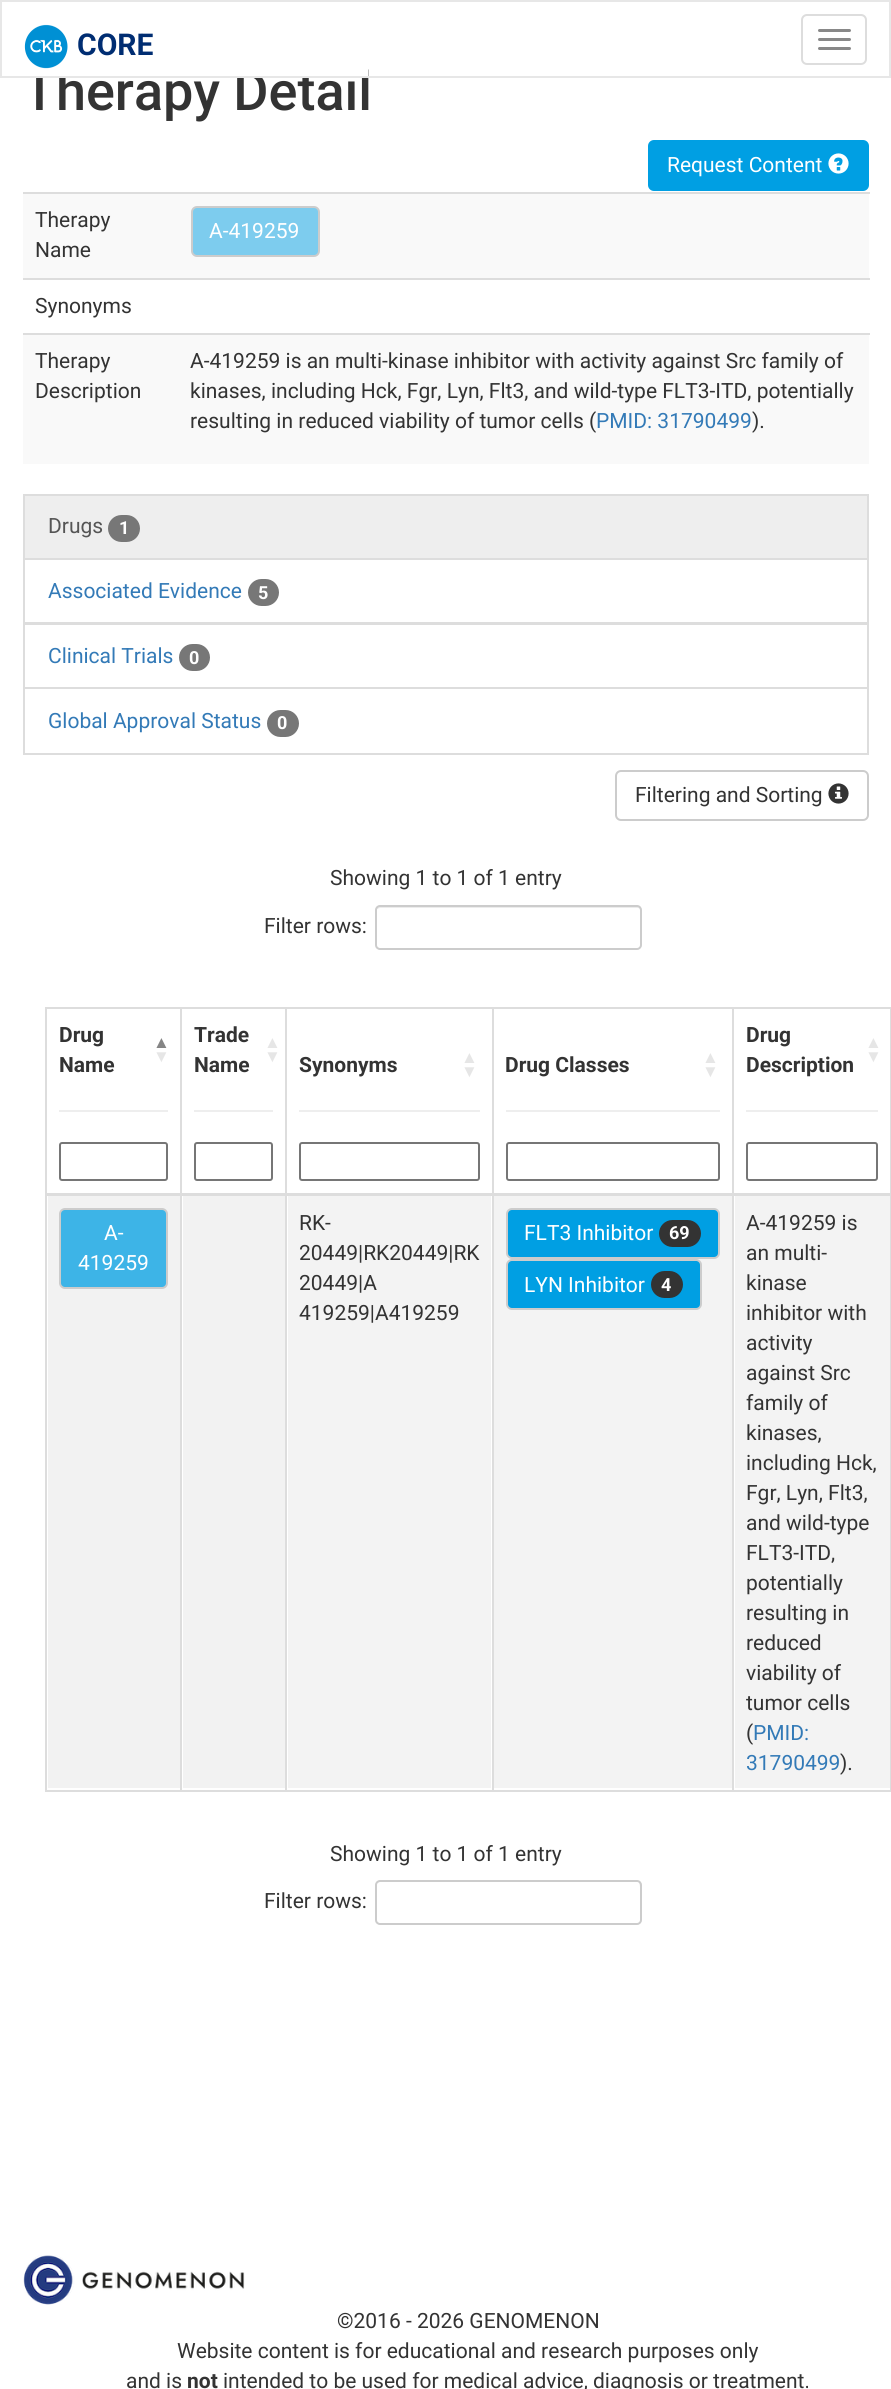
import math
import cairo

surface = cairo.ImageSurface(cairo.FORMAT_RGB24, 891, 2389)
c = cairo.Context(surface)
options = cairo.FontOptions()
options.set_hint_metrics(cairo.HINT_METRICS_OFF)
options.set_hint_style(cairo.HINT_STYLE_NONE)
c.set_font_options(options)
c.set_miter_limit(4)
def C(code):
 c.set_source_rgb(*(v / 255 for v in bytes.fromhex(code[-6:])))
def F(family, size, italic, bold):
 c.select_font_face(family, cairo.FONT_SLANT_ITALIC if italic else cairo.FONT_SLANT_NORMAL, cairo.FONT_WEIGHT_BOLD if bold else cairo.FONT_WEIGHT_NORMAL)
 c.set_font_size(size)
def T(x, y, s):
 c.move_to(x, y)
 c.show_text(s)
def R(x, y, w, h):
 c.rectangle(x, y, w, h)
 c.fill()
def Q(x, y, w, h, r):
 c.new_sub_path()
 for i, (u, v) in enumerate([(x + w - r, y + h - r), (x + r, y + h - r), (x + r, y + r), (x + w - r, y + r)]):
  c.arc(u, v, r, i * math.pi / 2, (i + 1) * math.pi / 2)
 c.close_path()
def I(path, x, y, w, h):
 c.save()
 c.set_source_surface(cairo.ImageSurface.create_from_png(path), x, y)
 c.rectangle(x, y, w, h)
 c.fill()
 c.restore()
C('ffffff')
c.paint()
F('Roboto Medium',54,0,0)
C('333333')
T(23,110,'Therapy Detail')
C('ffffff')
R(23,69,345,7)
c.rectangle(1,1,889,76)
C('e7e7e7')
c.stroke()
I('1.png',24,24,44,45)
F('Roboto',30,0,1)
C('002d72')
T(77,55,'CORE')
Q(802,15,64,49,5)
C('dddddd')
c.stroke()
C('888888')
Q(818,29,33,3,1.5)
c.fill()
Q(818,38,33,3,1.5)
c.fill()
Q(818,47,33,3,1.5)
c.fill()
C('009fe3')
Q(649,141,219,49,5)
c.fill_preserve()
c.stroke()
F('Roboto',21,0,0)
C('ffffff')
T(667,172,'Request Content')
I('2.png',828,153,21,21)
C('f9f9f9')
R(23,194,846,84)
C('333333')
T(35,227,'Therapy')
T(35,257,'Name')
C('dddddd')
R(23,192,847,2)
C('7dccee')
Q(192,207,127,49,5)
c.fill_preserve()
C('cccccc')
c.stroke()
C('ffffff')
T(209,238,'A-419259')
C('dddddd')
R(23,278,847,2)
C('333333')
T(35,313,'Synonyms')
C('f9f9f9')
R(23,335,846,129)
C('333333')
T(35,368,'Therapy')
T(35,398,'Description')
C('dddddd')
R(23,333,847,2)
C('333333')
T(190,368,'A-419259 is an multi-kinase inhibitor with activity against Src family of')
T(190,398,'kinases, including Hck, Fgr, Lyn, Flt3, and wild-type FLT3-ITD, potentially')
T(190,428,'resulting in reduced viability of tumor cells (')
C('337ab7')
T(596,428,'PMID: 31790499')
C('333333')
T(752,428,').')
C('eeeeee')
c.rectangle(24,495,844,64)
c.fill_preserve()
C('dddddd')
c.stroke()
C('555555')
T(48,533,'Drugs')
C('777777')
Q(108,515,32,27,13.5)
c.fill()
F('Roboto',18,0,1)
C('ffffff')
T(119,534,'1')
c.rectangle(24,559,844,64)
C('dddddd')
c.stroke()
F('Roboto',21,0,0)
C('337ab7')
T(48,598,'Associated Evidence')
C('777777')
Q(248,579,31,27,13.5)
c.fill()
F('Roboto',18,0,1)
C('ffffff')
T(258,599,'5')
c.rectangle(24,624,844,64)
C('dddddd')
c.stroke()
F('Roboto',21,0,0)
C('337ab7')
T(48,663,'Clinical Trials')
C('777777')
Q(179,644,31,27,13.5)
c.fill()
F('Roboto',18,0,1)
C('ffffff')
T(189,664,'0')
c.rectangle(24,688,844,66)
C('dddddd')
c.stroke()
F('Roboto',21,0,0)
C('337ab7')
T(48,728,'Global Approval Status')
C('777777')
Q(267,710,32,27,13.5)
c.fill()
F('Roboto',18,0,1)
C('ffffff')
T(277,729,'0')
Q(616,771,252,49,5)
C('cccccc')
c.stroke()
F('Roboto',21,0,0)
C('333333')
T(635,802,'Filtering and Sorting')
I('3.png',828,783,21,21)
T(330,885,'Showing 1 to 1 of 1 entry')
T(264,933,'Filter rows:')
C('ececec')
c.new_path()
c.move_to(380,908)
c.line_to(638,908)
c.curve_to(639,908,640,909,640,910)
c.line_to(640,947)
c.curve_to(641,947,641,946,641,945)
c.line_to(641,909)
c.curve_to(641,907,640,906,638,906)
c.line_to(380,906)
c.curve_to(378,906,377,907,377,909)
c.close_path()
c.fill()
Q(376,906,265,43,4)
C('cccccc')
c.stroke()
C('dddddd')
R(45,1007,846,2)
R(890,1007,1,784)
R(45,1790,846,2)
R(45,1007,2,784)
F('Roboto',21,0,1)
C('333333')
T(59,1042,'Drug')
T(59,1072,'Name')
F('Liberation Sans',17,0,1)
C('858585')
T(153,1048,'▲')
C('e6e6e6')
T(153,1062,'▼')
C('eeeeee')
R(59,1110,109,2)
Q(60,1143,107,37,2)
C('767676')
c.stroke()
F('Roboto',21,0,1)
C('333333')
T(194,1042,'Trade')
T(194,1072,'Name')
F('Liberation Sans',17,0,1)
C('e6e6e6')
T(264,1048,'▲')
T(264,1062,'▼')
C('eeeeee')
R(194,1110,79,2)
Q(195,1143,77,37,2)
C('767676')
c.stroke()
F('Roboto',21,0,1)
C('333333')
T(299,1072,'Synonyms')
F('Liberation Sans',17,0,1)
C('e6e6e6')
T(461,1063,'▲')
T(461,1077,'▼')
C('eeeeee')
R(299,1110,181,2)
Q(300,1143,179,37,2)
C('767676')
c.stroke()
F('Roboto',21,0,1)
C('333333')
T(505,1072,'Drug Classes')
F('Liberation Sans',17,0,1)
C('e6e6e6')
T(702,1063,'▲')
T(702,1077,'▼')
C('eeeeee')
R(506,1110,214,2)
Q(507,1143,212,37,2)
C('767676')
c.stroke()
C('dddddd')
R(180,1007,2,784)
R(285,1007,2,784)
R(492,1007,2,784)
R(732,1007,2,784)
R(45,1193,846,3)
F('Roboto',21,0,1)
C('333333')
T(746,1042,'Drug')
T(746,1072,'Description')
F('Liberation Sans',17,0,1)
C('e6e6e6')
T(865,1048,'▲')
T(865,1062,'▼')
C('eeeeee')
R(746,1110,132,2)
Q(747,1143,130,37,2)
C('767676')
c.stroke()
C('f2f2f2')
R(48,1196,132,592)
C('3db4e7')
Q(60,1209,107,79,5)
c.fill_preserve()
C('cccccc')
c.stroke()
F('Roboto',21,0,0)
C('ffffff')
T(104,1240,'A-')
T(78,1270,'419259')
C('f2f2f2')
R(183,1196,102,592)
C('f3f3f3')
R(288,1196,203,592)
C('333333')
T(299,1230,'RK-')
T(299,1260,'20449|RK20449|RK')
T(299,1290,'20449|A')
T(299,1320,'419259|A419259')
C('f3f3f3')
R(494,1196,238,592)
C('009fe3')
Q(507,1209,212,49,5)
c.fill_preserve()
C('cccccc')
c.stroke()
C('ffffff')
T(524,1240,'FLT3 Inhibitor')
C('333333')
Q(659,1220,42,27,13.5)
c.fill()
F('Roboto',18,0,1)
C('ffffff')
T(669,1239,'69')
C('009fe3')
Q(507,1260,194,49,5)
c.fill_preserve()
C('cccccc')
c.stroke()
F('Roboto',21,0,0)
C('ffffff')
T(524,1292,'LYN Inhibitor')
C('333333')
Q(651,1271,32,27,13.5)
c.fill()
F('Roboto',18,0,1)
C('ffffff')
T(661,1291,'4')
C('f3f3f3')
R(735,1196,155,592)
F('Roboto',21,0,0)
C('333333')
T(746,1230,'A-419259 is')
T(746,1260,'an multi-')
T(746,1290,'kinase')
T(746,1320,'inhibitor with')
T(746,1350,'activity')
T(746,1380,'against Src')
T(746,1410,'family of')
T(746,1440,'kinases,')
T(746,1470,'including Hck,')
T(746,1500,'Fgr, Lyn, Flt3,')
T(746,1530,'and wild-type')
T(746,1560,'FLT3-ITD,')
T(746,1590,'potentially')
T(746,1620,'resulting in')
T(746,1650,'reduced')
T(746,1680,'viability of')
T(746,1710,'tumor cells')
T(746,1740,'(')
C('337ab7')
T(753,1740,'PMID:')
T(746,1770,'31790499')
C('333333')
T(840,1770,').')
T(330,1861,'Showing 1 to 1 of 1 entry')
T(264,1908,'Filter rows:')
C('ececec')
c.new_path()
c.move_to(380,1882)
c.line_to(638,1882)
c.curve_to(641,1882,640,1897,640,1898)
c.line_to(640,1922)
c.curve_to(641,1922,641,1921,641,1920)
c.line_to(641,1884)
c.curve_to(641,1882,640,1881,638,1881)
c.line_to(380,1881)
c.curve_to(379,1881,377,1882,377,1883)
c.close_path()
c.fill()
Q(376,1881,265,43,4)
C('cccccc')
c.stroke()
I('4.png',23,2255,222,50)
C('333333')
T(337,2328,'©2016 - 2026 GENOMENON')
T(177,2358,'Website content is for educational and research purposes only')
T(126,2388,'and is')
F('Roboto',21,0,1)
T(187,2388,'not')
F('Roboto',21,0,0)
T(223,2388,'intended to be used for medical advice, diagnosis or treatment.')
surface.write_to_png('o.png')
